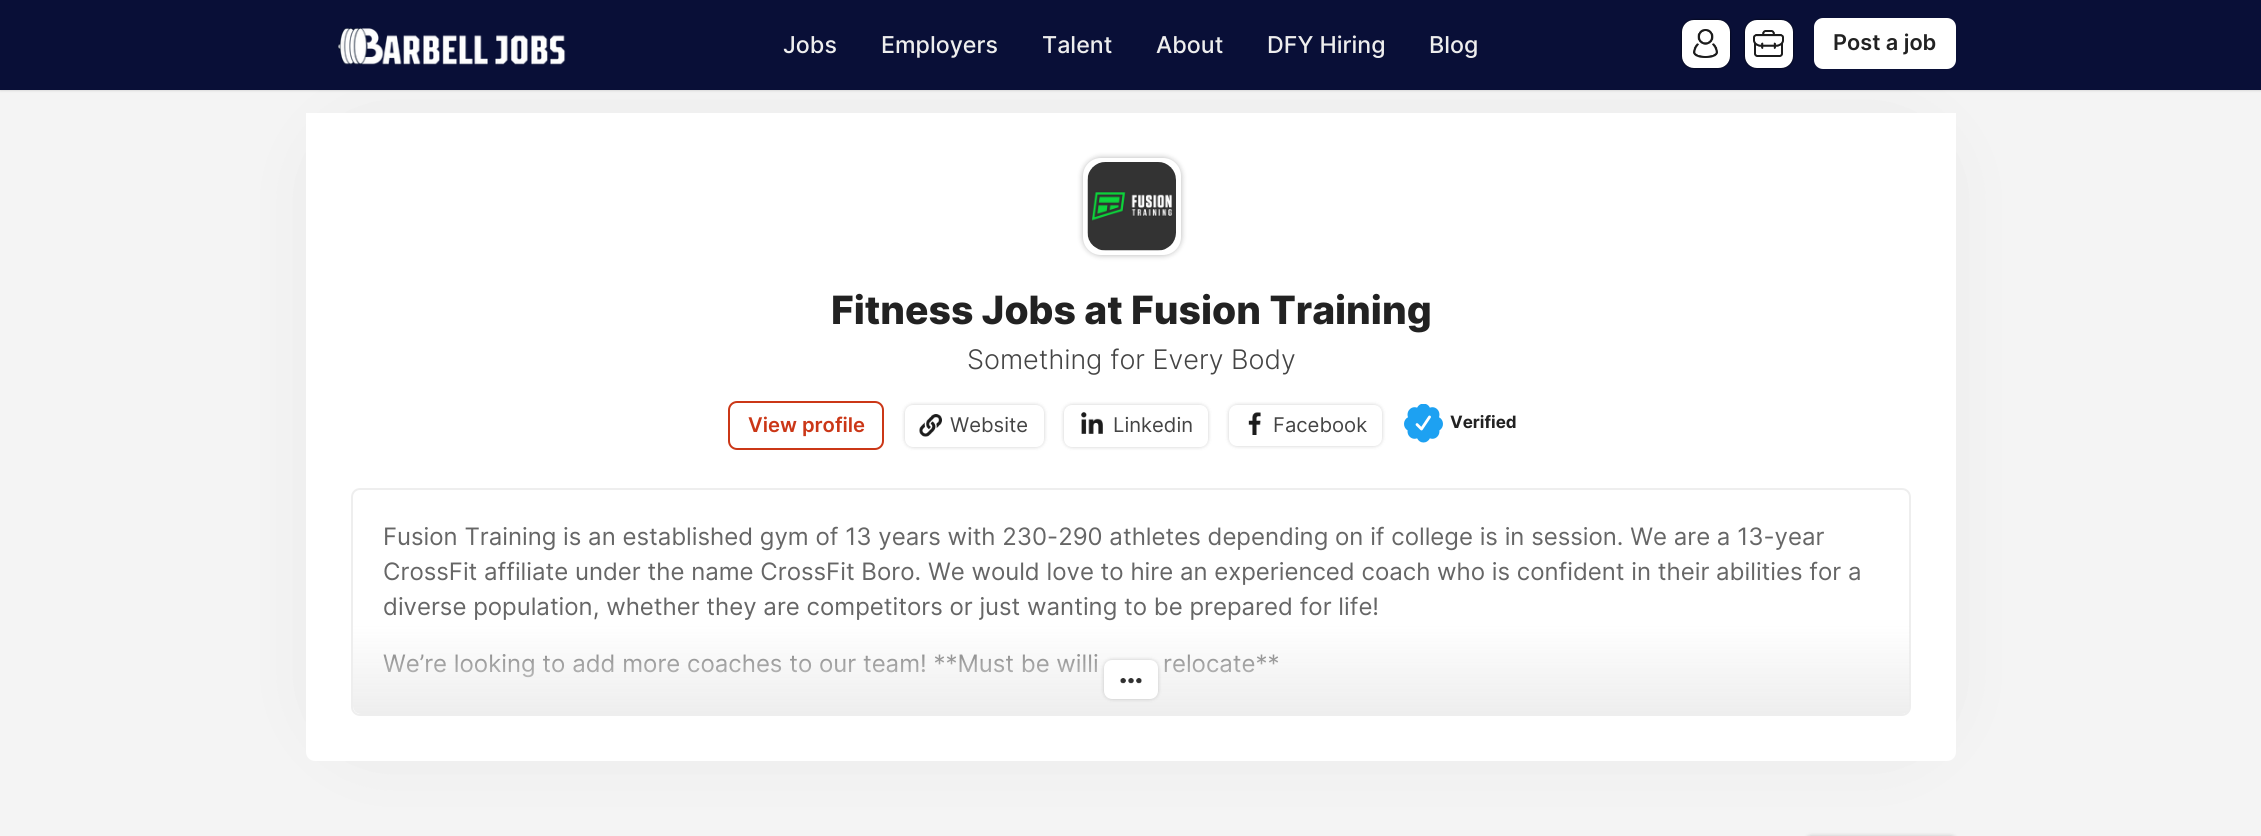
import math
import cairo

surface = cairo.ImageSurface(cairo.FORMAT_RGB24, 2261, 836)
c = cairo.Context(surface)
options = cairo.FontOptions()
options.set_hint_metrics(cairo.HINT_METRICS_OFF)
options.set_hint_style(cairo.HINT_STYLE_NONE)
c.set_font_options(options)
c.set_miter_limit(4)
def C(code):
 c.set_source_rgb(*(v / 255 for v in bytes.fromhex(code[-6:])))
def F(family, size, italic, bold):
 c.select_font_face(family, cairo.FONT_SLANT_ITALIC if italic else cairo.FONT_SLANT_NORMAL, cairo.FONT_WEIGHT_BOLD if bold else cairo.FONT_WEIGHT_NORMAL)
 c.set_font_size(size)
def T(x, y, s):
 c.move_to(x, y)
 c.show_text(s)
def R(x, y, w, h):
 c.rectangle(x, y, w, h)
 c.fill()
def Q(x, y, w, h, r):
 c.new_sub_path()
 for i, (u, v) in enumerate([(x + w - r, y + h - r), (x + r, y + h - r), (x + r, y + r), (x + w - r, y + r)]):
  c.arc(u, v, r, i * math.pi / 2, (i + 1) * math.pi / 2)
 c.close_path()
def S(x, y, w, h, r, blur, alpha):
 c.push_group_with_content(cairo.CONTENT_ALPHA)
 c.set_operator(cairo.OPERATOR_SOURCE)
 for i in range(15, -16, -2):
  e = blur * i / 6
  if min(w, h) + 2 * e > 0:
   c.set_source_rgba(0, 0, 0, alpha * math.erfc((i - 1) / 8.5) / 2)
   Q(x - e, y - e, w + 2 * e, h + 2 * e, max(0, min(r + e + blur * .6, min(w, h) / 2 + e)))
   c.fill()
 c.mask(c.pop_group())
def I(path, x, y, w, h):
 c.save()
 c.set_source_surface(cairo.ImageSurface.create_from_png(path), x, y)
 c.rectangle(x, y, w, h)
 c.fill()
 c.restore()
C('f4f4f4')
c.paint()
C('000000')
S(0,0,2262,90,0,1.5,.2)
S(366,173,1530,528,0,49,.2)
C('090f37')
R(0,0,2261,90)
I('1.png',337,28,229,37)
F('Inter Medium',23.25,0,0)
C('eeeeee')
T(783,53,'Jobs')
T(881,53,'Employers')
T(1042,53,'Talent')
T(1156,53,'About')
T(1267,53,'DFY Hiring')
T(1429,53,'Blog')
C('000000')
S(1682,20,48,48,12,1,.9)
C('ffffff')
Q(1682,20,48,48,12)
c.fill()
I('2.png',1693,29,25,29)
C('000000')
S(1745,20,48,48,12,1,.9)
C('ffffff')
Q(1745,20,48,48,12)
c.fill()
I('3.png',1753,30,31,27)
Q(1815,19,140,49,8)
c.fill_preserve()
c.stroke()
F('Inter SemiBold',21.75,0,0)
C('222222')
T(1833,50,'Post a job')
C('ffffff')
c.new_path()
c.move_to(306,113)
c.line_to(1956,113)
c.line_to(1956,752)
c.curve_to(1956,757,1952,761,1947,761)
c.line_to(315,761)
c.curve_to(310,761,306,757,306,752)
c.close_path()
c.fill()
C('000000')
S(1083,158,98,97,18,3,.3)
C('ffffff')
Q(1083,158,98,97,18)
c.fill()
I('4.png',1087,162,89,89)
F('Inter ExtraBold',39,0,0)
C('222222')
T(831,324,'Fitness Jobs at Fusion Training')
F('Inter Light',27,0,0)
C('444444')
T(967,369,'Something for Every Body')
Q(729,402,154,47,8)
C('cb3717')
c.stroke()
F('Inter SemiBold',20.25,0,0)
T(748,432,'View profile')
C('000000')
S(905,405,139,42,8,2,.2)
C('ffffff')
Q(905,405,139,42,8)
c.fill()
I('5.png',919,414,23,23)
F('Inter',20.25,0,0)
C('444444')
T(950,432,'Website')
C('000000')
S(1064,405,144,42,8,2,.2)
C('ffffff')
Q(1064,405,144,42,8)
c.fill()
I('6.png',1081,412,22,22)
C('444444')
T(1113,432,'Linkedin')
C('000000')
S(1229,405,153,41,8,2,.2)
C('ffffff')
Q(1229,405,153,41,8)
c.fill()
I('7.png',1248,412,13,23)
C('444444')
T(1273,432,'Facebook')
I('8.png',1404,404,39,39)
F('Inter',17,0,1)
C('222222')
T(1450,428,'Verified')
Q(352,489,1558,226,8)
C('eeeeee')
c.stroke()
F('Inter',24,0,0)
C('666666')
T(383,545,'Fusion Training is an established gym of 13 years with 230-290 athletes depending on if college is in session. We are a 13-year')
T(383,580,'CrossFit affiliate under the name CrossFit Boro. We would love to hire an experienced coach who is confident in their abilities for a')
T(383,615,'diverse population, whether they are competitors or just wanting to be prepared for life!')
T(383,672,'We’re looking to add more coaches to our team! **Must be willi')
T(1163,672,'relocate**')
gradient = cairo.LinearGradient(1131,624,1131,714)
gradient.add_color_stop_rgba(.01,0.933,0.933,0.933,0)
gradient.add_color_stop_rgba(1,0.933,0.933,0.933,1)
c.set_source(gradient)
c.new_path()
c.move_to(353,624)
c.line_to(1910,624)
c.line_to(1910,706)
c.curve_to(1910,710.5,1906.5,714,1902,714)
c.line_to(361,714)
c.curve_to(356.5,714,353,710.5,353,706)
c.close_path()
c.fill()
C('000000')
S(1104,660,54,39,8,2,.2)
C('ffffff')
Q(1104,660,54,39,8)
c.fill()
I('9.png',1120,678,22,6)
C('000000')
S(1806,836,150,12,6,2,.2)
surface.write_to_png('o.png')
